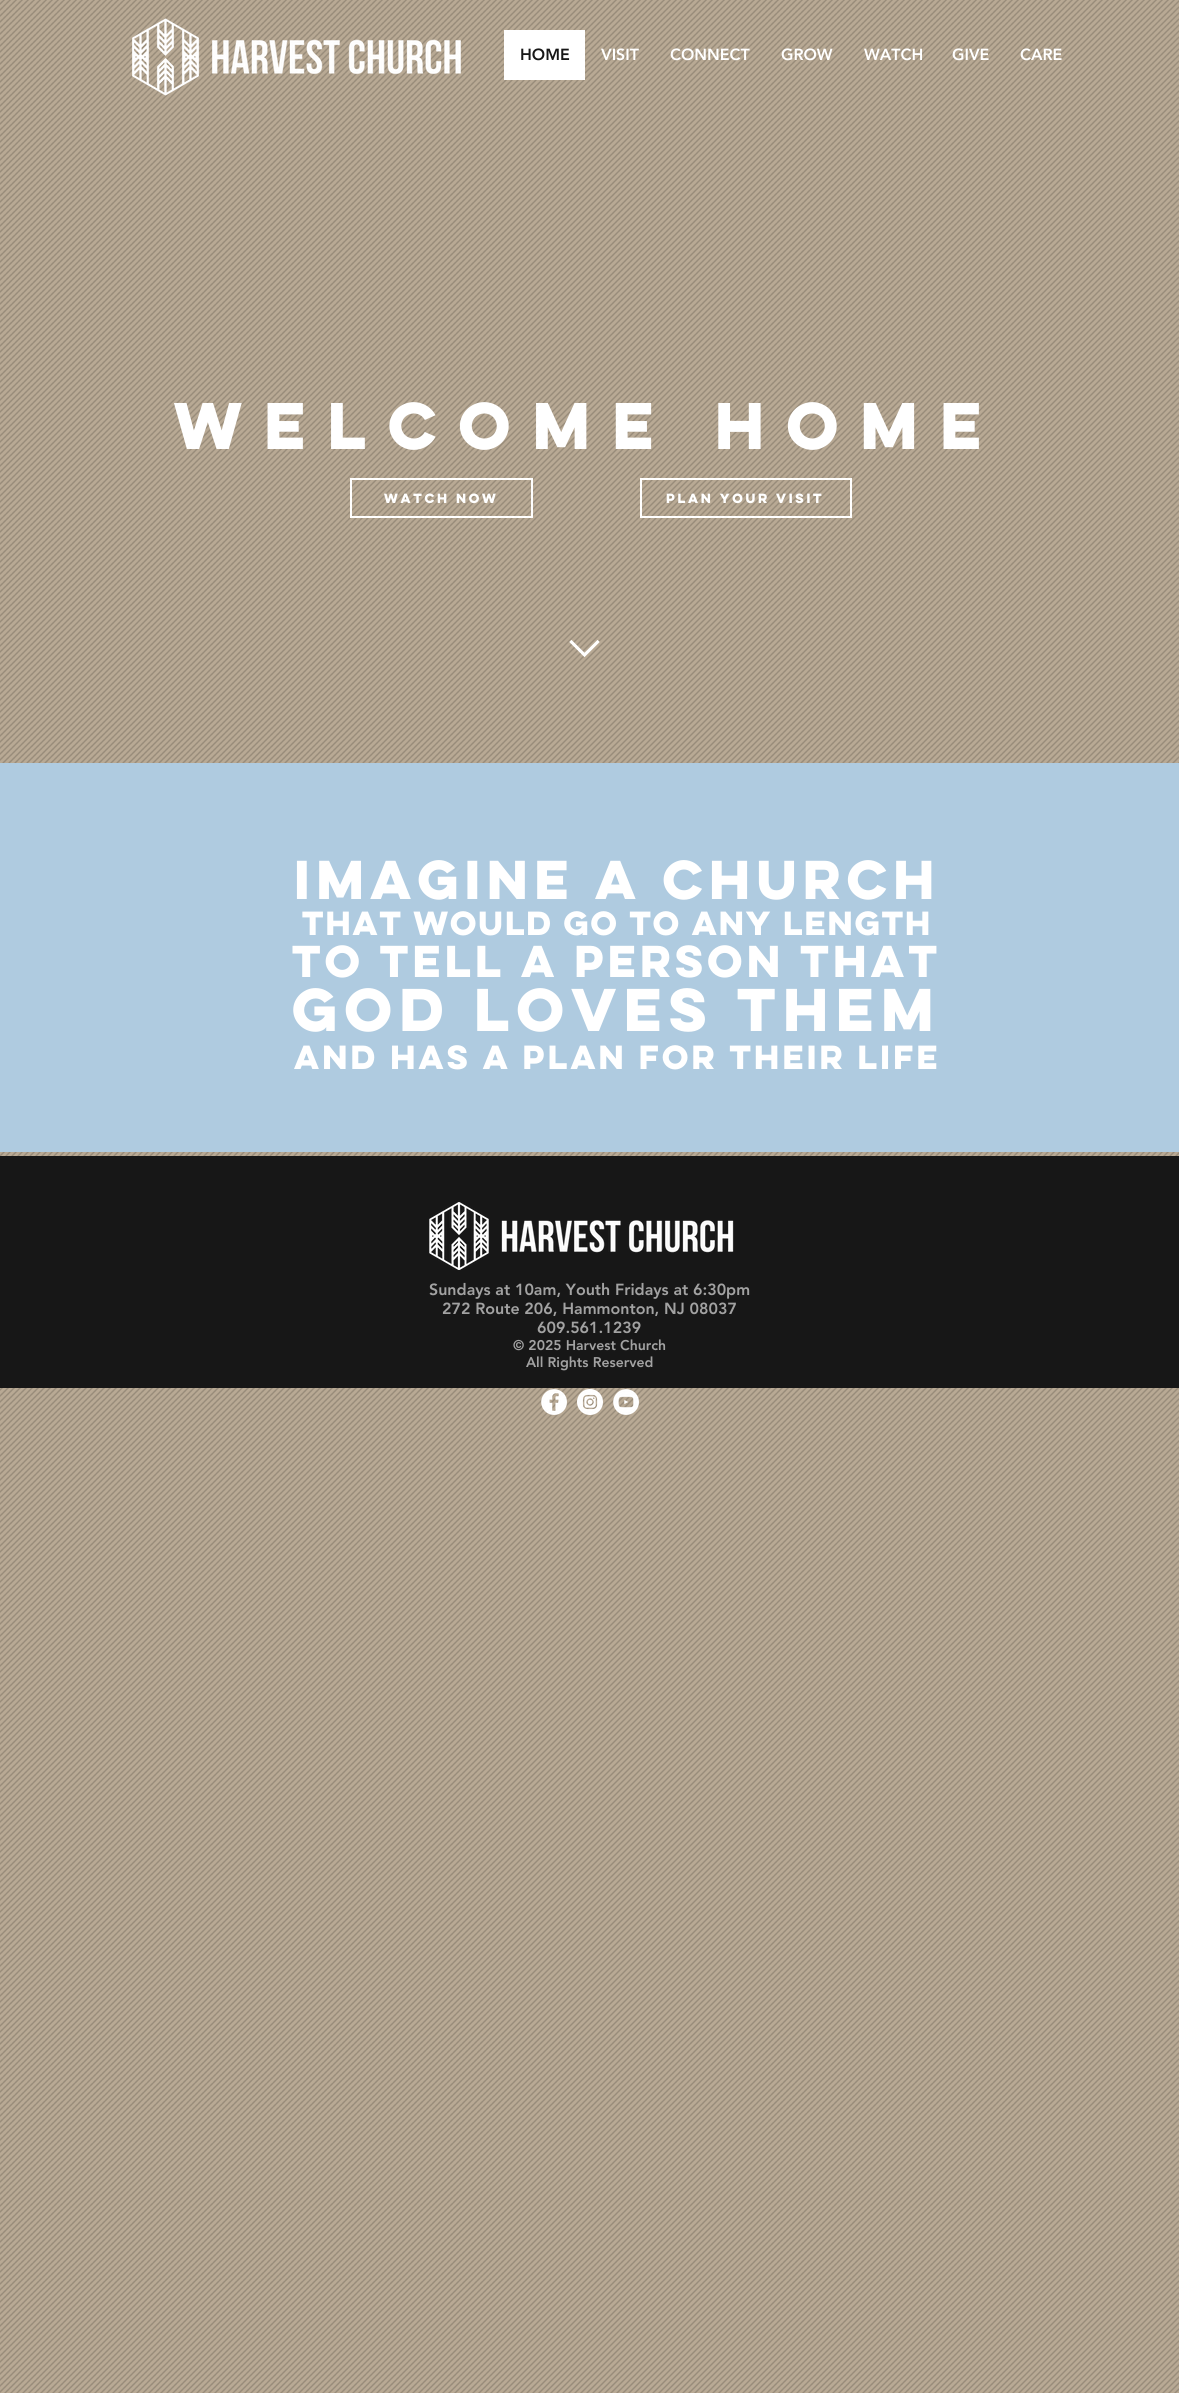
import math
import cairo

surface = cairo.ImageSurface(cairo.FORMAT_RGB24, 1179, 2393)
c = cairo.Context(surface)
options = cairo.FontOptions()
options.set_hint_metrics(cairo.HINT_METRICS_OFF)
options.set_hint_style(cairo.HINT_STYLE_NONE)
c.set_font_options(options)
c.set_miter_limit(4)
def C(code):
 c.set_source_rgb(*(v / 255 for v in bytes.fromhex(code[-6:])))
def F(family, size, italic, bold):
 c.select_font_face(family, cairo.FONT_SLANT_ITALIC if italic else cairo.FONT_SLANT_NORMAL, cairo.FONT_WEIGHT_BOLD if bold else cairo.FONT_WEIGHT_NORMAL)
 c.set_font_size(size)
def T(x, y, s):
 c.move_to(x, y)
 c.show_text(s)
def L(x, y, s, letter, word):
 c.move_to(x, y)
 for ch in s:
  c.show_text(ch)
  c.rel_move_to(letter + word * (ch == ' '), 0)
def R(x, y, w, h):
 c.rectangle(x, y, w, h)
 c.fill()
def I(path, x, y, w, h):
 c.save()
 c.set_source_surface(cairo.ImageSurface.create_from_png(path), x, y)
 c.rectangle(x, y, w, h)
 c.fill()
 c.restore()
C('b8a994')
c.paint()
I('1.png',0,0,1179,2393)
I('2.png',132,18,68,78)
I('3.png',212,39,249,36)
C('ffffff')
R(504,30,81,50)
F('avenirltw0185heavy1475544 Black',16,0,0)
C('171717')
T(520,60,'HOME')
C('ffffff')
T(601,60,'VISIT')
T(670,60,'CONNECT')
T(781,60,'GROW')
T(864,60,'WATCH')
T(952,60,'GIVE')
T(1020,60,'CARE')
F('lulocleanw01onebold',59,0,1)
L(174,449,'WELCOME HOME',8.8,0)
c.rectangle(351,479,181,38)
c.stroke()
F('lulocleanw01onebold',12,0,1)
T(384,503,'watch now')
c.rectangle(641,479,210,38)
c.stroke()
T(666,503,'plan your visit')
I('4.png',569,640,31,17)
C('afcbe0')
R(0,763,1179,389)
F('lulocleanw01onebold',49,0,1)
C('ffffff')
L(294,899,'IMAGINE A CHURCH',-4.8,0)
F('lulocleanw01onebold',30,0,1)
L(302,935,'THAT WOULD GO TO ANY LENGTH',-4.8,0)
F('lulocleanw01onebold',40,0,1)
L(292,977,'TO TELL A PERSON THAT',-4.8,0)
F('lulocleanw01onebold',54,0,1)
L(292,1031,'GOD LOVES THEM',-4.8,0)
F('lulocleanw01onebold',30,0,1)
L(294,1069,'AND HAS A PLAN FOR THEIR LIFE',-3.6,0)
C('171717')
R(0,1156,1179,232)
I('5.png',429,1202,60,68)
I('6.png',501,1220,233,33)
F('avenirltw0185heavy1475544 Black',16,0,0)
C('a2a2a2')
T(429,1295,'Sundays at 10am, Youth Fridays at 6:30pm')
T(442,1314,'272 Route 206, Hammonton, NJ 08037')
T(537,1333,'609.561.1239')
F('avenirltw0185heavy1475544 Black',14,0,0)
T(513,1350,'© 2025 Harvest Church')
T(526,1367,'All Rights Reserved')
I('7.png',541,1389,26,26)
I('8.png',577,1389,26,26)
I('9.png',613,1389,26,26)
surface.write_to_png('o.png')
